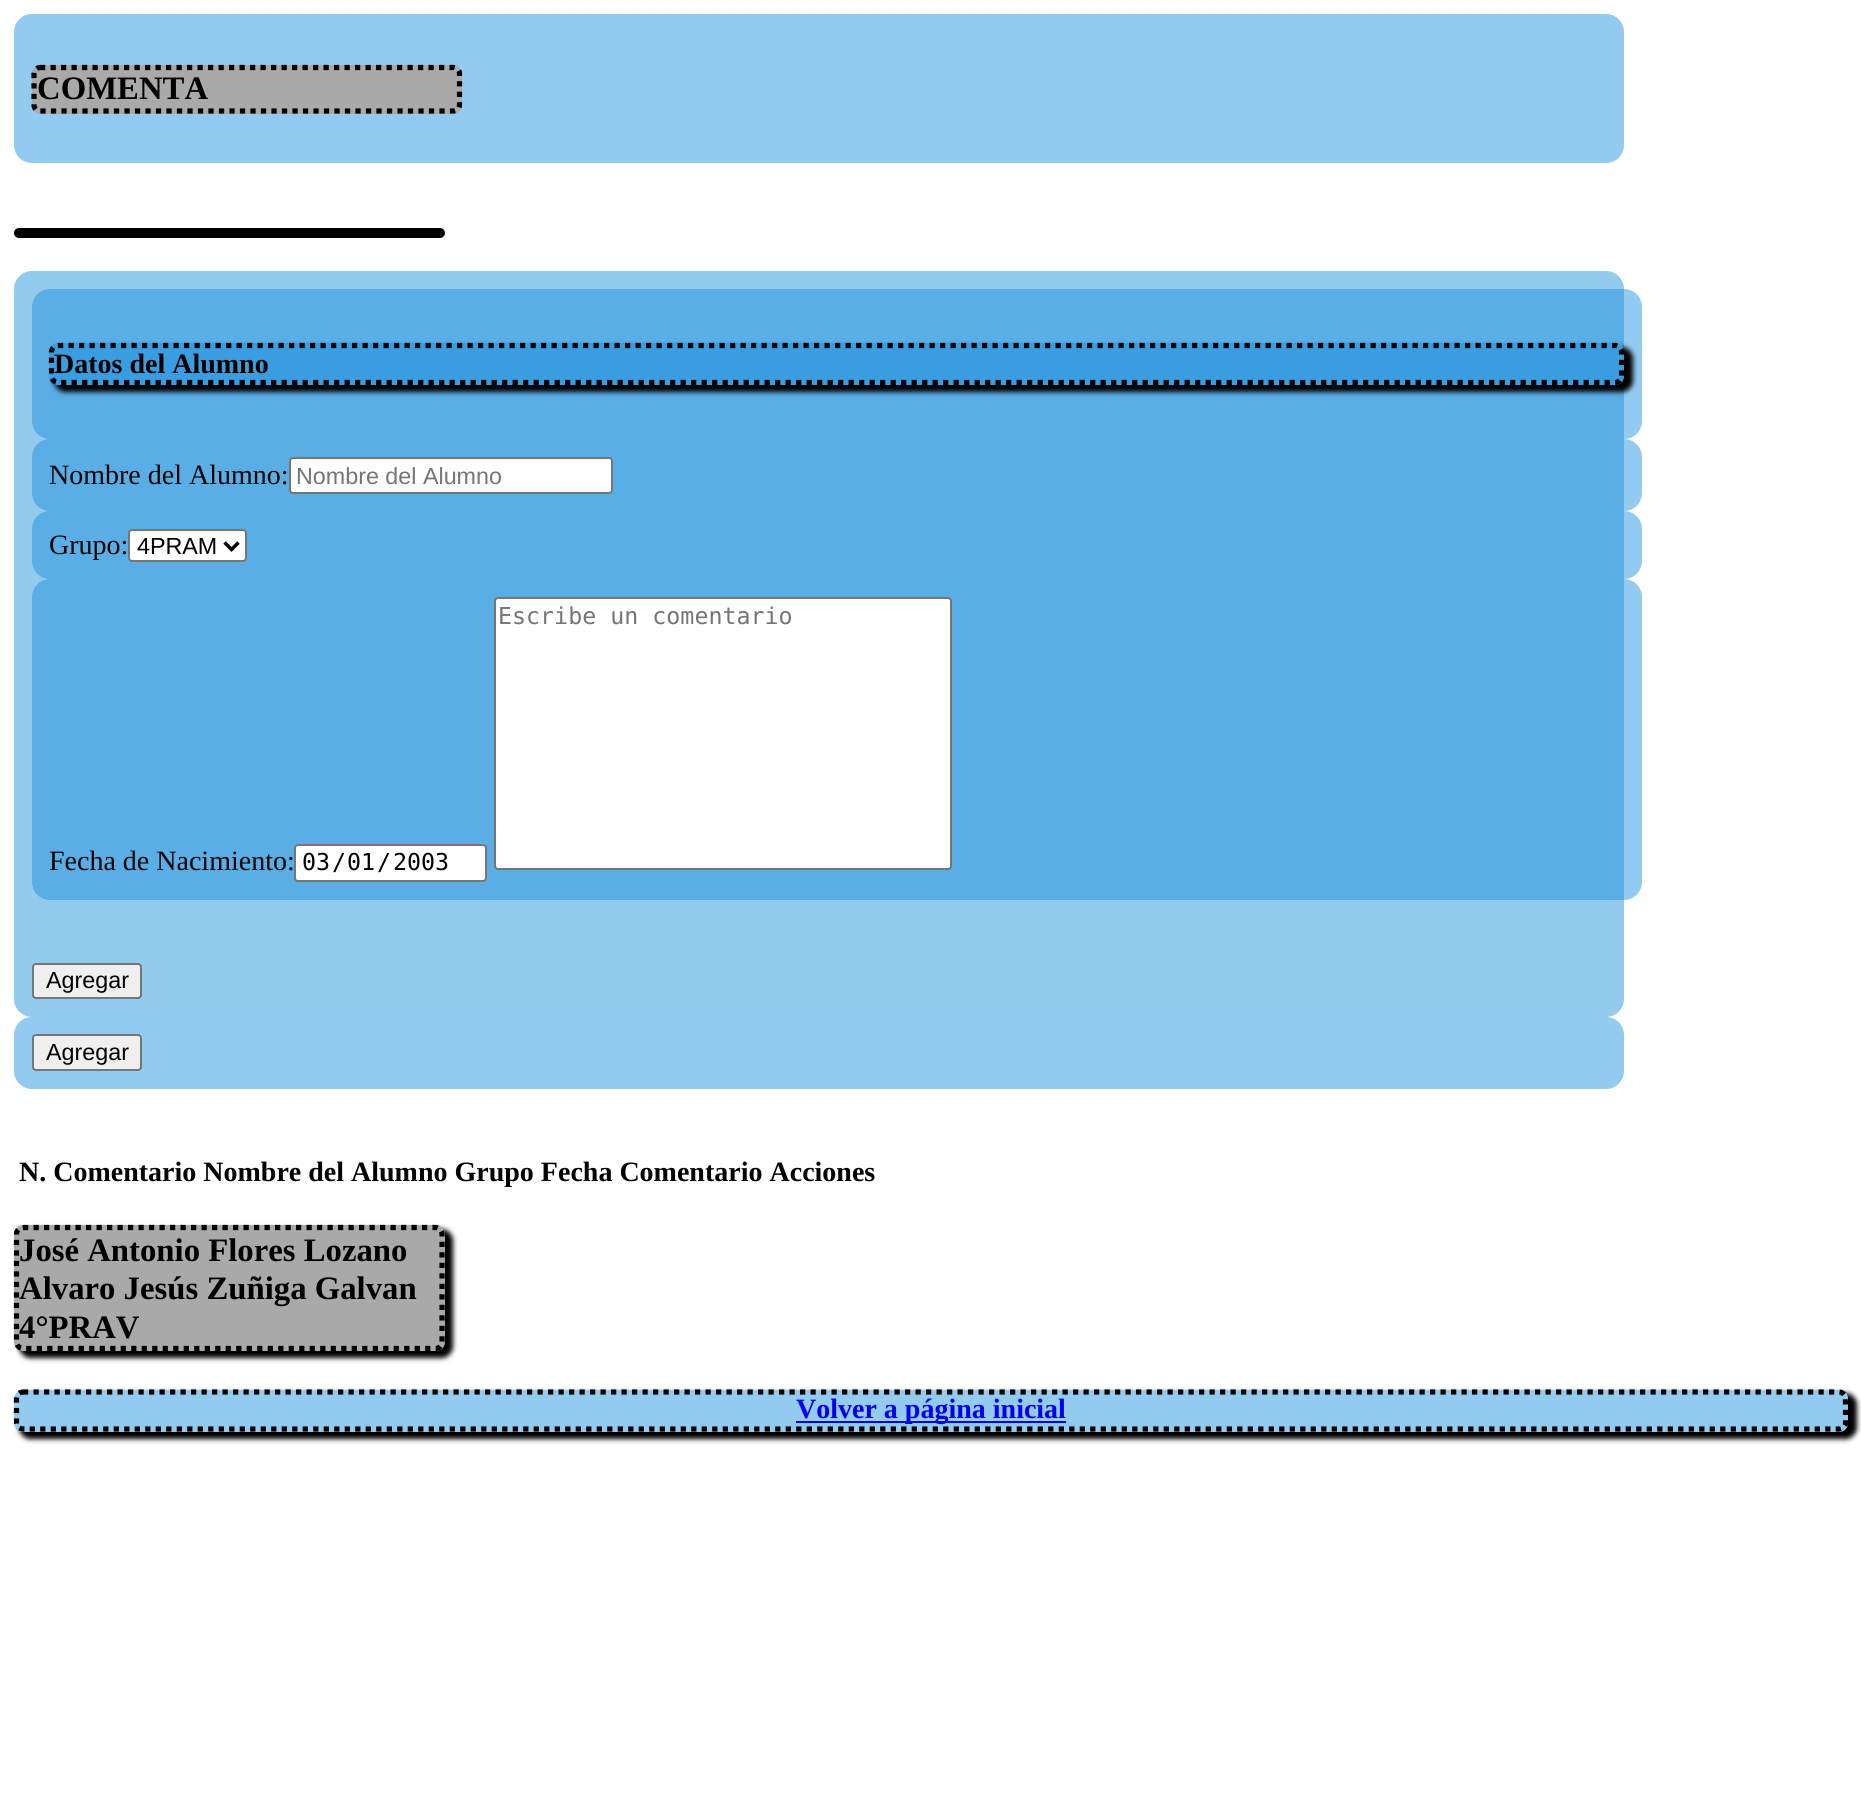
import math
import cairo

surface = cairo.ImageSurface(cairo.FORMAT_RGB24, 1861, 1810)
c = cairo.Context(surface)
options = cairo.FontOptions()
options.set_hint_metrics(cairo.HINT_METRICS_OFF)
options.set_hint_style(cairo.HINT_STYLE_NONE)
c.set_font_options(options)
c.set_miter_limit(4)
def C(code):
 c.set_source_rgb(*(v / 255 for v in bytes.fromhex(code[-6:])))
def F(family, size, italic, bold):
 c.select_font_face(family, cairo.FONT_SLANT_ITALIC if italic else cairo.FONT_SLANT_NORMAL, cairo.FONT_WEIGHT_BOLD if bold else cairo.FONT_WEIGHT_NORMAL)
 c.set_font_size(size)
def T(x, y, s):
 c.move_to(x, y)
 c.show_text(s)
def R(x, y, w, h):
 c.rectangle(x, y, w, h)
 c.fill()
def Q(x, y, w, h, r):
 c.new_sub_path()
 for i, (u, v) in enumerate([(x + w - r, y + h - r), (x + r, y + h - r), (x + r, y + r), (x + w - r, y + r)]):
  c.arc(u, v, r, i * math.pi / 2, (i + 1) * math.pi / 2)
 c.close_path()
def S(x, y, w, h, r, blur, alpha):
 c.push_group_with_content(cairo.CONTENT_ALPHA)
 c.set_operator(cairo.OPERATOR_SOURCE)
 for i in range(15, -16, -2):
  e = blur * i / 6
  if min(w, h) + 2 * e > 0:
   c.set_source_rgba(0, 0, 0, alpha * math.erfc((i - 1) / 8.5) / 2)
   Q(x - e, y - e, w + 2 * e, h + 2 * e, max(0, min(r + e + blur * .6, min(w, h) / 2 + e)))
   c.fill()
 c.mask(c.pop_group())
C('ffffff')
c.paint()
C('93caef')
Q(14,14,1610,149,18)
c.fill()
C('a9a9a9')
Q(32,65,430,49,9)
c.fill()
c.new_path()
c.move_to(40,67.5)
c.line_to(453,67.5)
c.curve_to(456.5,67.5,459.5,70,459.5,73.5)
c.line_to(459.5,105)
c.curve_to(459.5,108.5,456.5,111,453,111)
c.line_to(40,111)
c.curve_to(37,111,34,108.5,34,105)
c.line_to(34,73.5)
c.curve_to(34,70,37,67.5,40,67.5)
c.close_path()
C('000000')
c.set_line_width(5.2)
c.set_dash([5.25,5.25])
c.stroke()
F('Liberation Serif',32.75,0,1)
T(37,99,'COMENTA')
Q(14,228,431,10,5)
c.fill()
C('93cbef')
Q(14,271,1610,746,18)
c.fill()
c.set_source_rgba(0.078,0.549,0.863,0.46)
Q(32,289,1610,150,18)
c.fill()
c.save()
c.set_fill_rule(cairo.FILL_RULE_EVEN_ODD)
c.new_path()
c.move_to(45,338)
c.line_to(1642,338)
c.line_to(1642,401)
c.line_to(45,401)
c.close_path()
c.move_to(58,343)
c.line_to(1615,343)
c.curve_to(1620,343,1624,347,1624,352)
c.line_to(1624,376)
c.curve_to(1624,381,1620,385,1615,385)
c.line_to(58,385)
c.curve_to(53,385,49,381,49,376)
c.line_to(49,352)
c.curve_to(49,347,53,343,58,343)
c.close_path()
c.clip()
C('000000')
S(54,347,1579,45,11,2.5,1)
c.restore()
Q(49,343,1575,42,9)
c.fill()
c.new_path()
c.move_to(58,345.5)
c.line_to(1615,345.5)
c.curve_to(1618.5,345.5,1621.5,348.5,1621.5,352)
c.line_to(1621.5,376)
c.curve_to(1621.5,379.5,1618.5,382.5,1615,382.5)
c.line_to(58,382.5)
c.curve_to(54.5,382.5,51.5,379.5,51.5,376)
c.line_to(51.5,352)
c.curve_to(51.5,348.5,54.5,345.5,58,345.5)
c.close_path()
C('000000')
c.stroke()
F('Liberation Serif',28,0,1)
T(54,373,'Datos del Alumno')
c.set_source_rgba(0.078,0.549,0.863,0.46)
Q(32,439,1610,72,18)
c.fill()
F('Liberation Serif',28,0,0)
C('000000')
T(49,484,'Nombre del Alumno:')
C('ffffff')
Q(290,458,322,35,3)
c.fill_preserve()
C('767676')
c.set_line_width(2)
c.set_dash([])
c.stroke()
F('Liberation Sans',23.3,0,0)
C('757575')
T(296,484,'Nombre del Alumno')
c.set_source_rgba(0.078,0.549,0.863,0.46)
Q(32,511,1610,68,18)
c.fill()
F('Liberation Serif',28,0,0)
C('000000')
T(49,554,'Grupo:')
C('ffffff')
Q(129,530,117,31,3)
c.fill_preserve()
C('767676')
c.stroke()
c.new_path()
c.move_to(224.5,542.5)
c.line_to(231.5,549.5)
c.line_to(238.5,542.5)
C('000000')
c.set_line_width(3.5)
c.stroke()
F('Liberation Sans',23.3,0,0)
T(137,554,'4PRAM')
c.set_source_rgba(0.078,0.549,0.863,0.46)
Q(32,579,1610,321,18)
c.fill()
C('ffffff')
Q(495,598,456,271,3)
c.fill_preserve()
C('767676')
c.set_line_width(2)
c.stroke()
F('DejaVu Sans Mono',23.3,0,0)
C('757575')
T(498,624,'Escribe un comentario')
F('Liberation Serif',28,0,0)
C('000000')
T(49,870,'Fecha de Nacimiento:')
C('ffffff')
Q(295,845,191,36,3)
c.fill_preserve()
C('767676')
c.stroke()
F('DejaVu Sans Mono',23.3,0,0)
C('000000')
T(302,870,'03')
T(332,870,'/')
T(347,870,'01')
T(377,870,'/')
T(393,870,'2003')
C('efefef')
Q(33,964,108,34,3)
c.fill_preserve()
C('767676')
c.stroke()
F('Liberation Sans',23.3,0,0)
C('000000')
T(46,988,'Agregar')
C('93caef')
Q(14,1017,1610,72,18)
c.fill()
C('efefef')
Q(33,1035,108,35,3)
c.fill_preserve()
C('767676')
c.stroke()
C('000000')
T(46,1060,'Agregar')
F('Liberation Serif',28,0,1)
T(19,1181,'N. Comentario Nombre del Alumno Grupo Fecha Comentario Acciones')
C('000000')
S(19,1229,434,129,11,2.5,1)
C('a9a9a9')
Q(14,1225,431,126,9)
c.fill()
c.new_path()
c.move_to(23,1227.5)
c.line_to(436,1227.5)
c.curve_to(439,1227.5,442,1230.5,442,1234)
c.line_to(442,1342)
c.curve_to(442,1345.5,439,1348.5,436,1348.5)
c.line_to(23,1348.5)
c.curve_to(19.5,1348.5,16.5,1345.5,16.5,1342)
c.line_to(16.5,1234)
c.curve_to(16.5,1230.5,19.5,1227.5,23,1227.5)
c.close_path()
C('000000')
c.set_line_width(5.2)
c.set_dash([5.25,5.25])
c.stroke()
F('Liberation Serif',32.75,0,1)
T(19,1261,'José Antonio Flores Lozano')
T(19,1299,'Alvaro Jesús Zuñiga Galvan')
T(19,1338,'4°PRAV')
c.save()
c.set_fill_rule(cairo.FILL_RULE_EVEN_ODD)
c.new_path()
c.move_to(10,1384)
c.line_to(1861,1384)
c.line_to(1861,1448)
c.line_to(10,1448)
c.close_path()
c.move_to(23,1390)
c.line_to(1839,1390)
c.curve_to(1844,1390,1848,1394,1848,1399)
c.line_to(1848,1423)
c.curve_to(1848,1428,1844,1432,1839,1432)
c.line_to(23,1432)
c.curve_to(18,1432,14,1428,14,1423)
c.line_to(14,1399)
c.curve_to(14,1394,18,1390,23,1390)
c.close_path()
c.clip()
C('000000')
S(19,1393,1838,46,11,2.5,1)
c.restore()
c.set_source_rgba(0.078,0.549,0.863,0.46)
Q(14,1390,1834,42,9)
c.fill()
c.new_path()
c.move_to(23,1392)
c.line_to(1839,1392)
c.curve_to(1842.5,1392,1845.5,1395,1845.5,1398)
c.line_to(1845.5,1423)
c.curve_to(1845.5,1426,1842.5,1429,1839,1429)
c.line_to(23,1429)
c.curve_to(19.5,1429,16.5,1426,16.5,1423)
c.line_to(16.5,1398)
c.curve_to(16.5,1395,19.5,1392,23,1392)
c.close_path()
C('000000')
c.stroke()
C('0000ee')
R(796,1421,270,2)
F('Liberation Serif',28,0,1)
T(796,1418,'Volver a página inicial')
surface.write_to_png('o.png')
